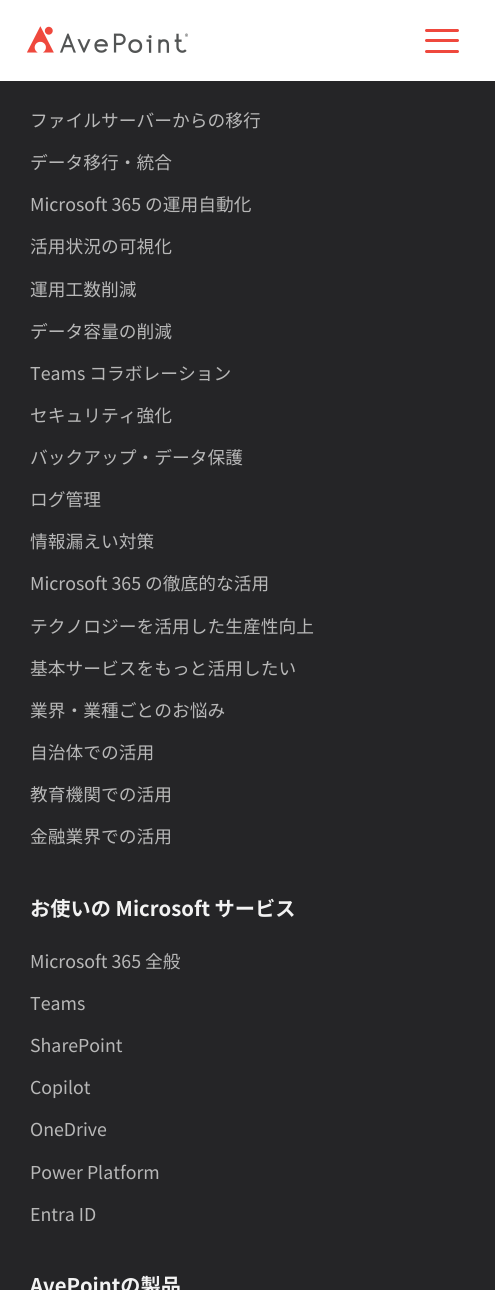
import math
import cairo

surface = cairo.ImageSurface(cairo.FORMAT_RGB24, 495, 1290)
c = cairo.Context(surface)
options = cairo.FontOptions()
options.set_hint_metrics(cairo.HINT_METRICS_OFF)
options.set_hint_style(cairo.HINT_STYLE_NONE)
c.set_font_options(options)
c.set_miter_limit(4)
def C(code):
 c.set_source_rgb(*(v / 255 for v in bytes.fromhex(code[-6:])))
def F(family, size, italic, bold):
 c.select_font_face(family, cairo.FONT_SLANT_ITALIC if italic else cairo.FONT_SLANT_NORMAL, cairo.FONT_WEIGHT_BOLD if bold else cairo.FONT_WEIGHT_NORMAL)
 c.set_font_size(size)
def T(x, y, s):
 c.move_to(x, y)
 c.show_text(s)
def R(x, y, w, h):
 c.rectangle(x, y, w, h)
 c.fill()
def Q(x, y, w, h, r):
 c.new_sub_path()
 for i, (u, v) in enumerate([(x + w - r, y + h - r), (x + r, y + h - r), (x + r, y + r), (x + w - r, y + r)]):
  c.arc(u, v, r, i * math.pi / 2, (i + 1) * math.pi / 2)
 c.close_path()
def I(path, x, y, w, h):
 c.save()
 c.set_source_surface(cairo.ImageSurface.create_from_png(path), x, y)
 c.rectangle(x, y, w, h)
 c.fill()
 c.restore()
C('252527')
c.paint()
C('ffffff')
R(0,0,495,81)
I('1.png',27,26,161,27)
C('ef483d')
Q(425,29,34,3,1.5)
c.fill()
Q(425,39,34,3,1.5)
c.fill()
Q(425,50,34,3,1.5)
c.fill()
F('Noto Sans CJK JP',17.75,0,0)
C('b8b8b8')
T(30,127,'ファイルサーバーからの移行')
T(30,169,'データ移行・統合')
T(30,211,'Microsoft 365 の運用自動化')
T(30,253,'活用状況の可視化')
T(30,296,'運用工数削減')
T(30,338,'データ容量の削減')
T(30,380,'Teams コラボレーション')
T(30,422,'セキュリティ強化')
T(30,464,'バックアップ・データ保護')
T(30,506,'ログ管理')
T(30,548,'情報漏えい対策')
T(30,590,'Microsoft 365 の徹底的な活用')
T(30,633,'テクノロジーを活用した生産性向上')
T(30,675,'基本サービスをもっと活用したい')
T(30,717,'業界・業種ごとのお悩み')
T(30,759,'自治体での活用')
T(30,801,'教育機関での活用')
T(30,843,'金融業界での活用')
F('Noto Sans CJK JP',20.25,0,1)
C('f2f2f2')
T(30,916,'お使いの Microsoft サービス')
F('Noto Sans CJK JP',17.75,0,0)
C('b8b8b8')
T(30,968,'Microsoft 365 全般')
T(30,1010,'Teams')
T(30,1052,'SharePoint')
T(30,1094,'Copilot')
T(30,1136,'OneDrive')
T(30,1179,'Power Platform')
T(30,1221,'Entra ID')
F('Noto Sans CJK JP',20.25,0,1)
C('f2f2f2')
T(30,1293,'AvePointの製品')
surface.write_to_png('o.png')
